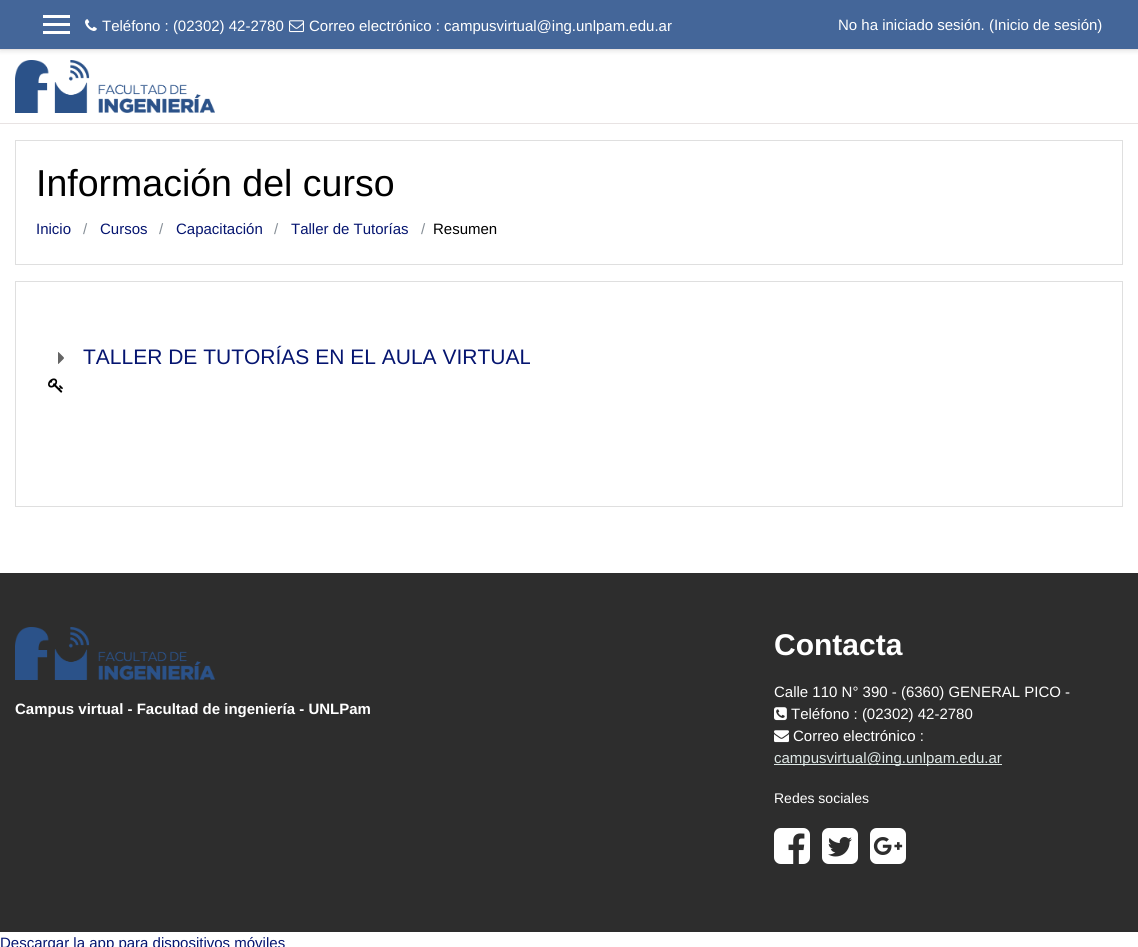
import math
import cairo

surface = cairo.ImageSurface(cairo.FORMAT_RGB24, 1138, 947)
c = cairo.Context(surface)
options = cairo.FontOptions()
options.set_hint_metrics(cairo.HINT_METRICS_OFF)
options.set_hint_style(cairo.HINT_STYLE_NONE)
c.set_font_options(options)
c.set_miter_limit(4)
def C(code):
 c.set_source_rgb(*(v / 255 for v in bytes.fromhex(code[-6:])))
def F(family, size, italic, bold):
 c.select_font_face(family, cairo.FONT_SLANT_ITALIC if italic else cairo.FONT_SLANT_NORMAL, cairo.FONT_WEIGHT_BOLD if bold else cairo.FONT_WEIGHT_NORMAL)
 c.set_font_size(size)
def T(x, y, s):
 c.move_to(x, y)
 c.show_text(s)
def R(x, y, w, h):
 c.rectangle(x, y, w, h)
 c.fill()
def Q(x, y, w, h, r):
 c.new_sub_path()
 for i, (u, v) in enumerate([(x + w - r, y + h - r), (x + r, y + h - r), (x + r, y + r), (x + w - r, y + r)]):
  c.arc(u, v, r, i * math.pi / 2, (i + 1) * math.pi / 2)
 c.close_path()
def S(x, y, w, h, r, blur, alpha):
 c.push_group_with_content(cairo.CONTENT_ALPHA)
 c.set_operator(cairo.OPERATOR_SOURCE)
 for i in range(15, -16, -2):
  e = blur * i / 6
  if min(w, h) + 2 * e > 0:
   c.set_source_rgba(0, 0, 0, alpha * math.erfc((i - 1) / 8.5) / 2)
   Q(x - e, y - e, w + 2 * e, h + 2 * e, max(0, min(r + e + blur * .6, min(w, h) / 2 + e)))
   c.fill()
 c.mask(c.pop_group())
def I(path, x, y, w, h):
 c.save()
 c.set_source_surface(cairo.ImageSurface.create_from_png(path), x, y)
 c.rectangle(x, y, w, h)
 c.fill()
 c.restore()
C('ffffff')
c.paint()
C('000000')
S(0,2,1138,50,0,2,.08)
C('446699')
R(0,0,1138,49)
C('e8e3e3')
R(0,49,1138,1)
C('ffffff')
R(43,15,27,3)
R(43,23,27,3)
R(43,31,27,3)
I('1.png',85,19,12,12)
F('Liberation Sans',15,0,0)
T(102,31,'Teléfono : (02302) 42-2780')
I('2.png',289,20,15,13)
T(309,31,'Correo electrónico : campusvirtual@ing.unlpam.edu.ar')
T(838,30,'No ha iniciado sesión. (Inicio de sesión)')
C('e8e3e3')
R(0,123,1138,1)
I('3.png',15,60,200,53)
c.rectangle(15.5,140.5,1107,124)
C('dfdfdf')
c.set_line_width(1)
c.stroke()
F('Liberation Sans',37.5,0,0)
C('000000')
T(36,196,'Información del curso')
F('Liberation Sans',15,0,0)
C('051570')
T(36,234,'Inicio')
C('868e96')
T(83,234,'/')
C('051570')
T(100,234,'Cursos')
C('868e96')
T(159,234,'/')
C('051570')
T(176,234,'Capacitación')
C('868e96')
T(274,234,'/')
C('051570')
T(291,234,'Taller de Tutorías')
C('868e96')
T(421,234,'/')
C('000000')
T(433,234,'Resumen')
c.rectangle(15.5,281.5,1107,225)
C('dfdfdf')
c.stroke()
I('4.png',58,352,6,12)
F('Liberation Sans',21,0,0)
C('051570')
T(83,364,'TALLER DE TUTORÍAS EN EL AULA VIRTUAL')
I('5.png',48,378,15,15)
C('2d2d2d')
R(0,573,1138,359)
I('6.png',15,627,200,53)
F('Liberation Sans',15,0,1)
C('ffffff')
T(15,714,'Campus virtual - Facultad de ingeniería - UNLPam')
F('Liberation Sans',30,0,1)
T(774,655,'Contacta')
F('Liberation Sans',15,0,0)
T(774,697,'Calle 110 N° 390 - (6360) GENERAL PICO -')
I('7.png',774,707,13,14)
T(791,719,'Teléfono : (02302) 42-2780')
I('8.png',774,730,15,13)
T(793,741,'Correo electrónico :')
C('dee8e6')
R(774,764,228,1)
T(774,763,'campusvirtual@ing.unlpam.edu.ar')
F('Liberation Sans',14,0,0)
C('ffffff')
T(774,803,'Redes sociales')
I('9.png',774,828,36,36)
I('10.png',822,828,36,36)
I('11.png',870,828,36,36)
F('Liberation Sans',15,0,0)
C('051570')
T(0,948,'Descargar la app para dispositivos móviles')
surface.write_to_png('o.png')
